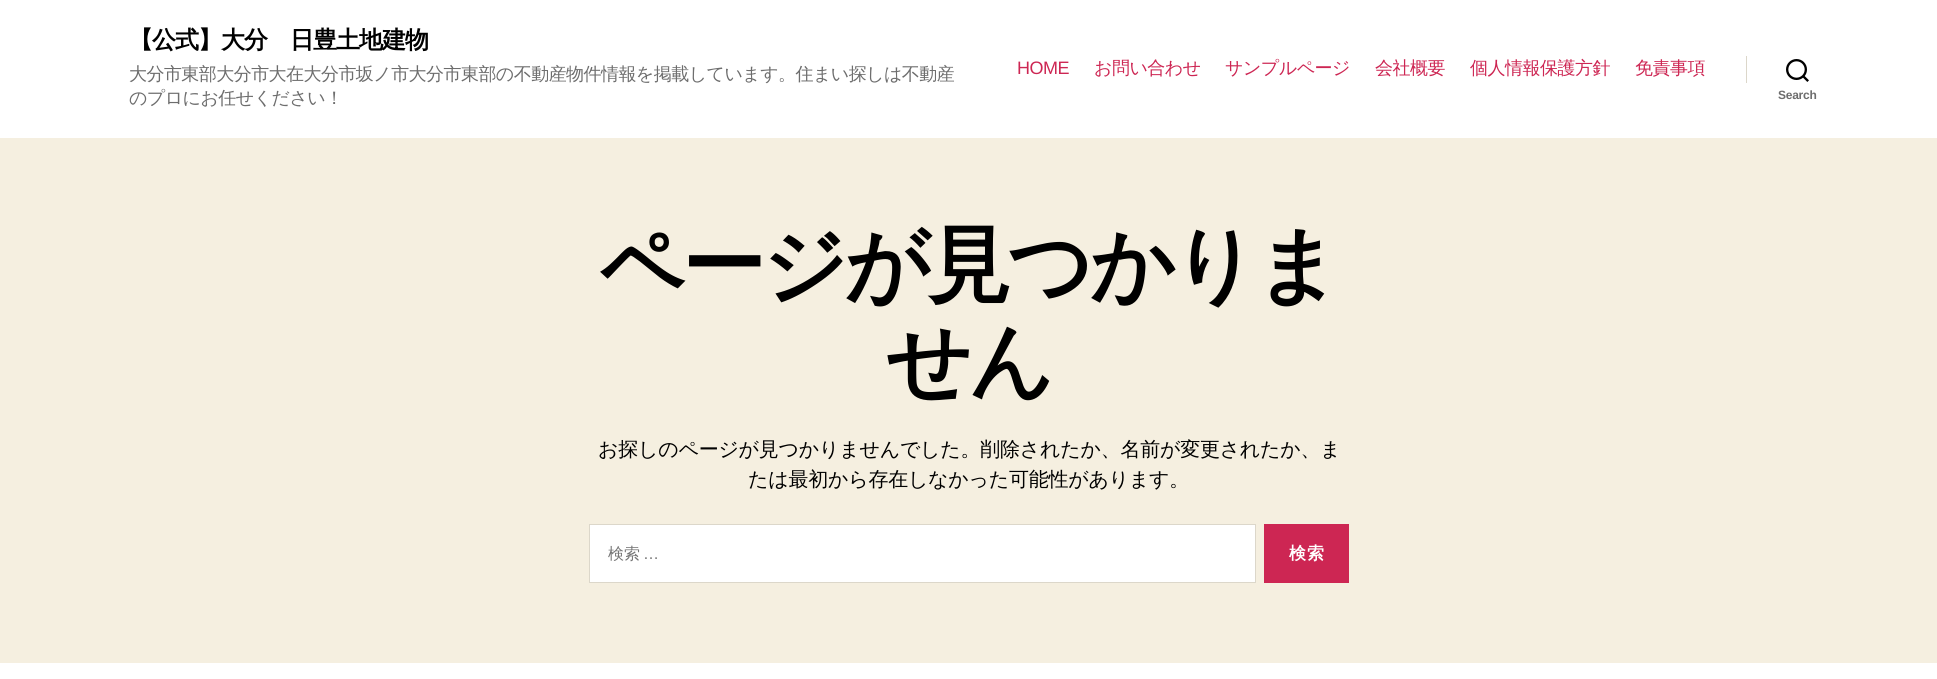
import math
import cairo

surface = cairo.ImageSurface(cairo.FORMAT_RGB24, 1937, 679)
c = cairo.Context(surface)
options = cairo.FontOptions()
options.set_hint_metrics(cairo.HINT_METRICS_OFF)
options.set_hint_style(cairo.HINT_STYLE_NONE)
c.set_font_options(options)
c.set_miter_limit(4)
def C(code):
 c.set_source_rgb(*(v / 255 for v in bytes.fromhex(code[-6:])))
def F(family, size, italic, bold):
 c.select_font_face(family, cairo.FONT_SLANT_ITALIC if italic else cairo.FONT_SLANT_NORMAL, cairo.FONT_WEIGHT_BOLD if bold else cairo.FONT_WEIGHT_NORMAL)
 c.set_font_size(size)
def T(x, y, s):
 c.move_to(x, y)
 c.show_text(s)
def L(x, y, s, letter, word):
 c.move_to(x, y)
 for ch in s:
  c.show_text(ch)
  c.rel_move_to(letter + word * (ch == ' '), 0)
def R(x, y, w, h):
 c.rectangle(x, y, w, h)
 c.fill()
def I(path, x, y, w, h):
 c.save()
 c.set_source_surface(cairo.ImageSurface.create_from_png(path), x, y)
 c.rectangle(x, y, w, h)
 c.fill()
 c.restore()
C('f5efe0')
c.paint()
C('ffffff')
R(0,0,1937,138)
F('WenQuanYi Zen Hei',24,0,1)
C('000000')
L(129,48,'【公式】大分　日豊土地建物',-1,0)
F('WenQuanYi Zen Hei Medium',18,0,0)
C('6d6d6d')
L(129,80,'大分市東部大分市大在大分市坂ノ市大分市東部の不動産物件情報を掲載しています。住まい探しは不動産',-.55,0)
L(129,104,'のプロにお任せください！',-.55,0)
F('Liberation Sans',18,0,0)
C('cd2653')
L(1017,74,'HOME',-.5,0)
F('WenQuanYi Zen Hei Medium',18,0,0)
L(1094,74,'お問い合わせ',-.5,0)
L(1225,74,'サンプルページ',-.5,0)
L(1375,74,'会社概要',-.5,0)
L(1470,74,'個人情報保護方針',-.5,0)
L(1635,74,'免責事項',-.5,0)
C('dcd7ca')
R(1746,56,1,27)
I('1.png',1786,59,23,23)
F('Liberation Sans',12,0,1)
C('6d6d6d')
L(1778,99,'Search',-.25,0)
F('WenQuanYi Zen Hei',84,0,1)
C('000000')
L(599,294,'ページが見つかりま',-3.5,0)
L(886,390,'せん',-3.5,0)
F('WenQuanYi Zen Hei Medium',20,0,0)
L(598,456,'お探しのページが見つかりませんでした。削除されたか、名前が変更されたか、ま',-.25,0)
L(748,486,'たは最初から存在しなかった可能性があります。',-.25,0)
C('ffffff')
c.rectangle(589.5,524.5,666,58)
c.fill_preserve()
C('dcd7ca')
c.set_line_width(1)
c.stroke()
F('WenQuanYi Zen Hei Medium',16,0,0)
C('757575')
T(608,559,'検索')
F('Liberation Sans',16,0,0)
T(643,559,'…')
C('cd2653')
R(1264,524,85,59)
F('WenQuanYi Zen Hei',17,0,1)
C('ffffff')
L(1289,559,'検索',1,0)
R(0,663,1937,16)
surface.write_to_png('o.png')
